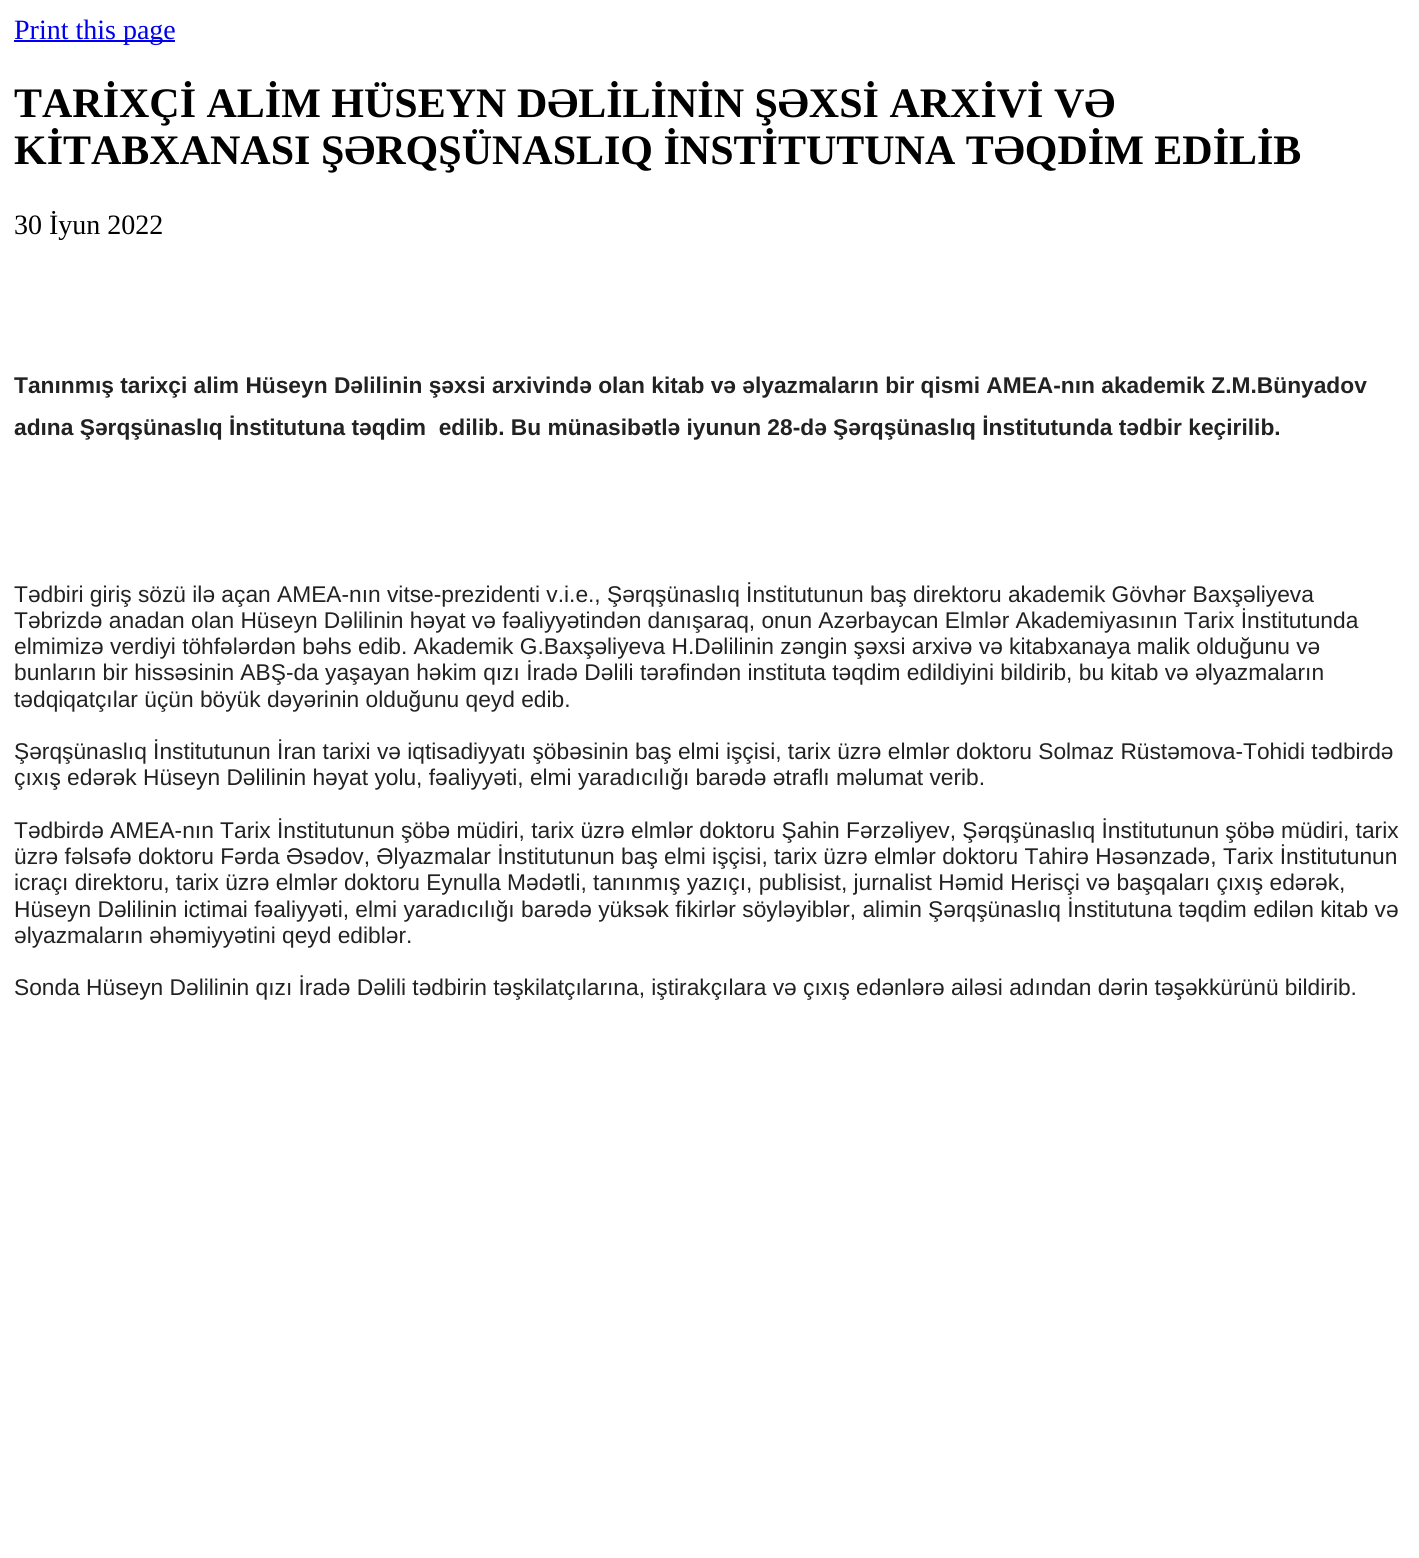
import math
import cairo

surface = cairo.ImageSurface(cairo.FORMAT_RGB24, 1419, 1558)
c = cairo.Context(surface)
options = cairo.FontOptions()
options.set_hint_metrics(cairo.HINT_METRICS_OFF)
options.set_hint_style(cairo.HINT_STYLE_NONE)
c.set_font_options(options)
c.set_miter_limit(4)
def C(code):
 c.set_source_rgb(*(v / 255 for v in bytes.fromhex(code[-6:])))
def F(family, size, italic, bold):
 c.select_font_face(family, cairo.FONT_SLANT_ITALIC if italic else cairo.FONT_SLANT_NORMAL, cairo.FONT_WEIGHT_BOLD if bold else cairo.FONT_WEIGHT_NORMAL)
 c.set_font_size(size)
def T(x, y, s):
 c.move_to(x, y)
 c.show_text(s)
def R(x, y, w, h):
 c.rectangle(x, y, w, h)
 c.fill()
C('ffffff')
c.paint()
C('0000ee')
R(14,40,161,2)
F('Liberation Serif',28,0,0)
T(14,39,'Print this page')
F('Liberation Serif',42,0,1)
C('000000')
T(14,117,'TARİXÇİ ALİM HÜSEYN DƏLİLİNİN ŞƏXSİ ARXİVİ VƏ')
T(14,164,'KİTABXANASI ŞƏRQŞÜNASLIQ İNSTİTUTUNA TƏQDİM EDİLİB')
F('Liberation Serif',28,0,0)
T(14,234,'30 İyun 2022')
F('Liberation Sans',22.75,0,1)
C('222222')
T(14,393,'Tanınmış tarixçi alim Hüseyn Dəlilinin şəxsi arxivində olan kitab və əlyazmaların bir qismi AMEA-nın akademik Z.M.Bünyadov')
T(14,435,'adına Şərqşünaslıq İnstitutuna təqdim  edilib. Bu münasibətlə iyunun 28-də Şərqşünaslıq İnstitutunda tədbir keçirilib.')
F('Liberation Sans',22.75,0,0)
T(14,602,'Tədbiri giriş sözü ilə açan AMEA-nın vitse-prezidenti v.i.e., Şərqşünaslıq İnstitutunun baş direktoru akademik Gövhər Baxşəliyeva')
T(14,628,'Təbrizdə anadan olan Hüseyn Dəlilinin həyat və fəaliyyətindən danışaraq, onun Azərbaycan Elmlər Akademiyasının Tarix İnstitutunda')
T(14,654,'elmimizə verdiyi töhfələrdən bəhs edib. Akademik G.Baxşəliyeva H.Dəlilinin zəngin şəxsi arxivə və kitabxanaya malik olduğunu və')
T(14,680,'bunların bir hissəsinin ABŞ-da yaşayan həkim qızı İradə Dəlili tərəfindən instituta təqdim edildiyini bildirib, bu kitab və əlyazmaların')
T(14,707,'tədqiqatçılar üçün böyük dəyərinin olduğunu qeyd edib.')
T(14,759,'Şərqşünaslıq İnstitutunun İran tarixi və iqtisadiyyatı şöbəsinin baş elmi işçisi, tarix üzrə elmlər doktoru Solmaz Rüstəmova-Tohidi tədbirdə')
T(14,785,'çıxış edərək Hüseyn Dəlilinin həyat yolu, fəaliyyəti, elmi yaradıcılığı barədə ətraflı məlumat verib.')
T(14,838,'Tədbirdə AMEA-nın Tarix İnstitutunun şöbə müdiri, tarix üzrə elmlər doktoru Şahin Fərzəliyev, Şərqşünaslıq İnstitutunun şöbə müdiri, tarix')
T(14,864,'üzrə fəlsəfə doktoru Fərda Əsədov, Əlyazmalar İnstitutunun baş elmi işçisi, tarix üzrə elmlər doktoru Tahirə Həsənzadə, Tarix İnstitutunun')
T(14,890,'icraçı direktoru, tarix üzrə elmlər doktoru Eynulla Mədətli, tanınmış yazıçı, publisist, jurnalist Həmid Herisçi və başqaları çıxış edərək,')
T(14,917,'Hüseyn Dəlilinin ictimai fəaliyyəti, elmi yaradıcılığı barədə yüksək fikirlər söyləyiblər, alimin Şərqşünaslıq İnstitutuna təqdim edilən kitab və')
T(14,943,'əlyazmaların əhəmiyyətini qeyd ediblər.')
T(14,995,'Sonda Hüseyn Dəlilinin qızı İradə Dəlili tədbirin təşkilatçılarına, iştirakçılara və çıxış edənlərə ailəsi adından dərin təşəkkürünü bildirib.')
surface.write_to_png('o.png')
